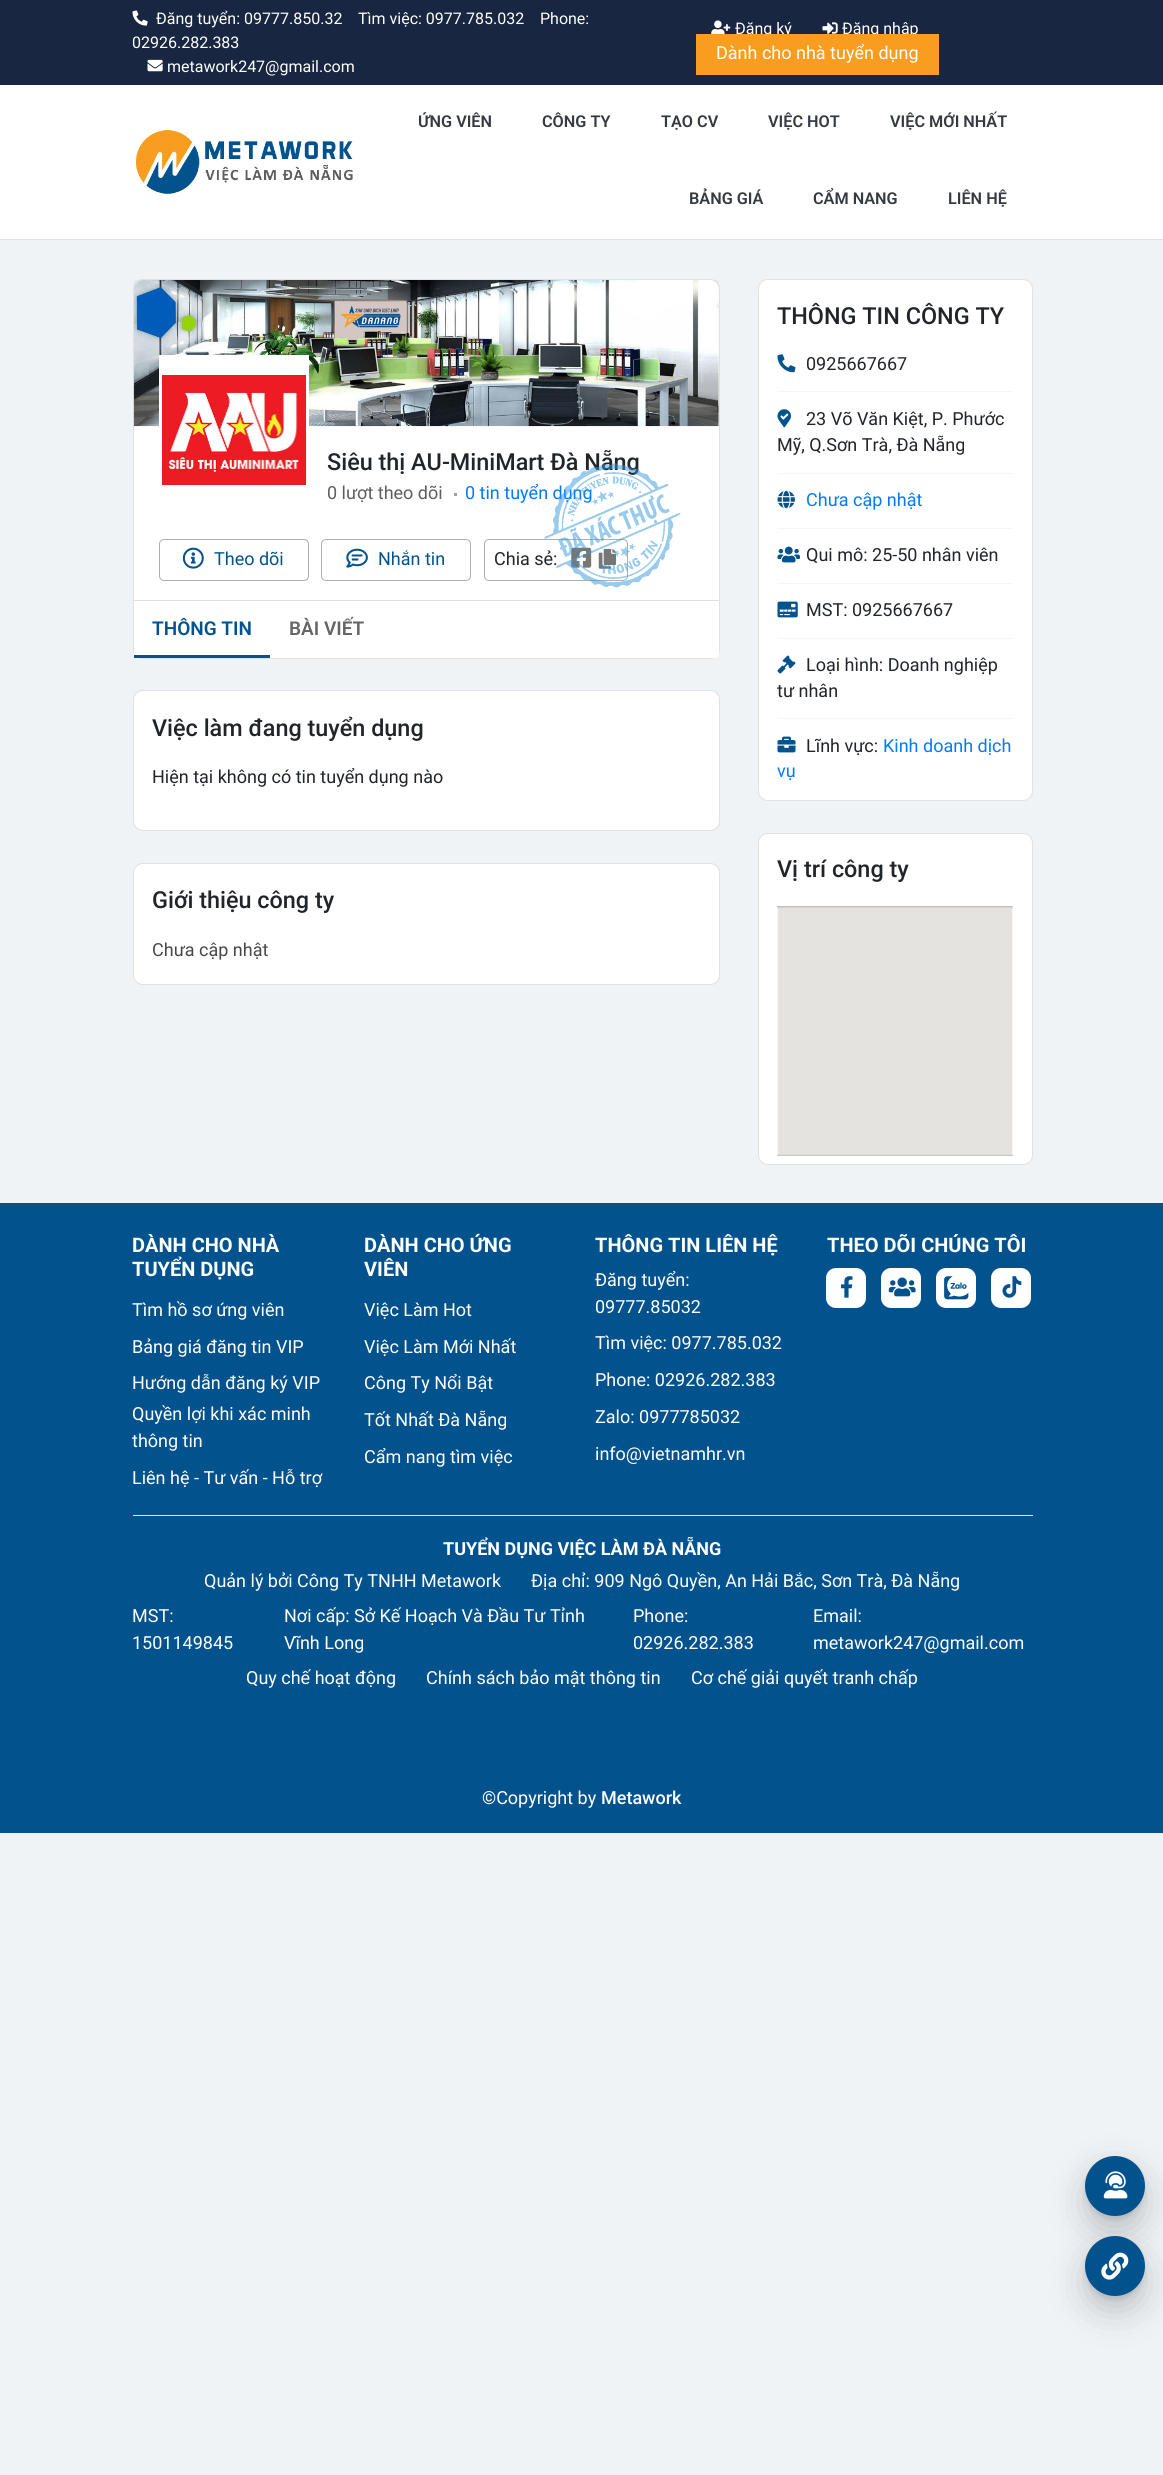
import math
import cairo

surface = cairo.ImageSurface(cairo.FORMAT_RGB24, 1163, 2475)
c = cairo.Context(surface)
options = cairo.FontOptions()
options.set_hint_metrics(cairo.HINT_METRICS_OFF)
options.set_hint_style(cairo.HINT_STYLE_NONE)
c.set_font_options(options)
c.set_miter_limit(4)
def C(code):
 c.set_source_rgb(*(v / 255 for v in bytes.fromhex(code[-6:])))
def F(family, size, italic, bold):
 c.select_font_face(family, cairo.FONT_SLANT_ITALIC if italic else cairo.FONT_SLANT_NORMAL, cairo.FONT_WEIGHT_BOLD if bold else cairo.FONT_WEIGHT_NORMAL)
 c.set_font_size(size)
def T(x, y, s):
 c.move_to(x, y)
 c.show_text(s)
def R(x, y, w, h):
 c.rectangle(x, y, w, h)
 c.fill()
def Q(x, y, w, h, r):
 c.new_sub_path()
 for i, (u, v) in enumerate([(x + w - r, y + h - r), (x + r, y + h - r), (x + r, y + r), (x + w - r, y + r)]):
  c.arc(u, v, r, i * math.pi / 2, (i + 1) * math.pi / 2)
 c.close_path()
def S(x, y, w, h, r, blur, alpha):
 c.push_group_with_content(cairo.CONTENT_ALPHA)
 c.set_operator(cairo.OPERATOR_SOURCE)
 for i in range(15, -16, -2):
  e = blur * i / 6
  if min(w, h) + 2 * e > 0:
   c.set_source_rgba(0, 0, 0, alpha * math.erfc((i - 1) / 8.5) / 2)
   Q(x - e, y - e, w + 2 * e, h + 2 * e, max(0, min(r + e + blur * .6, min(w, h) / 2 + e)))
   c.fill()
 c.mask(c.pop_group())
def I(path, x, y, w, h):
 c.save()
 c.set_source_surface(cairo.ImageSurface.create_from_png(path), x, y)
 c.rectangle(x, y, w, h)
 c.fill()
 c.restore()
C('eff3f6')
c.paint()
C('ffffff')
R(0,85,1163,154)
C('dee2e6')
R(0,239,1163,1)
C('182641')
R(0,0,1163,85)
I('1.png',132,10,16,16)
F('Roboto',16,0,0)
C('ffffff')
T(156,24,'Đăng tuyển: 09777.850.32')
T(358,24,'Tìm việc: 0977.785.032')
T(540,24,'Phone:')
T(132,48,'02926.282.383')
I('2.png',147,59,16,13)
T(167,72,'metawork247@gmail.com')
I('3.png',711,20,20,14)
T(735,34,'Đăng ký')
I('4.png',822,22,16,12)
T(842,34,'Đăng nhập')
C('f89d20')
R(696,34,243,41)
F('Roboto',18,0,0)
C('ffffff')
T(716,59,'Dành cho nhà tuyển dụng')
I('5.png',136,130,217,64)
F('Roboto SemiBold',16.25,0,0)
C('343a40')
T(418,127,'ỨNG VIÊN')
T(542,127,'CÔNG TY')
T(661,127,'TẠO CV')
T(768,127,'VIỆC HOT')
T(890,127,'VIỆC MỚI NHẤT')
T(689,204,'BẢNG GIÁ')
T(813,204,'CẨM NANG')
T(948,204,'LIÊN HỆ')
C('ffffff')
Q(133,279,587,380,10)
c.fill()
Q(133.5,279.5,586,379,9.5)
c.set_source_rgba(0,0,0,0.12)
c.set_line_width(1)
c.stroke()
c.set_source_rgba(0,0,0,0.03)
R(134,280,585,146)
I('6.png',133,280,586,147)
C('ffffff')
R(162,358,144,69)
I('7.png',162,375,144,110)
c.rectangle(160.5,356.5,147,147)
c.set_line_width(3)
c.stroke()
F('Roboto Medium',23.4,0,0)
C('212529')
T(327,470,'Siêu thị AU-MiniMart Đà Nẵng')
F('Roboto',18,0,0)
C('605d5d')
T(327,499,'0 lượt theo dõi')
C('a09e9e')
R(454,493,3,3)
C('007bff')
T(465,499,'0 tin tuyển dụng')
Q(159.5,539.5,149,41,4.5)
C('b1b0b0')
c.set_line_width(1)
c.stroke()
I('8.png',182,547,22,22)
C('02528e')
T(214,565,'Theo dõi')
Q(321.5,539.5,149,41,4.5)
C('b1b0b0')
c.stroke()
I('9.png',346,548,22,20)
C('02528e')
T(378,565,'Nhắn tin')
Q(484.5,539.5,143,41,4.5)
C('b1b0b0')
c.stroke()
C('212529')
T(494,565,'Chia sẻ:')
I('10.png',571,547,21,21)
I('11.png',598,548,19,21)
I('12.png',544,463,137,125)
C('ffffff')
c.new_path()
c.move_to(134,600)
c.line_to(719,600)
c.line_to(719,654)
c.curve_to(719,656,717,658,715,658)
c.line_to(138,658)
c.curve_to(136,658,134,656,134,654)
c.close_path()
c.fill()
C('dfdfdf')
R(134,600,585,1)
C('02528e')
R(134,655,136,3)
F('Roboto SemiBold',19,0,0)
T(152,635,'THÔNG TIN')
C('666666')
T(289,635,'BÀI VIẾT')
C('ffffff')
Q(133,690,587,141,10)
c.fill()
Q(133.5,690.5,586,140,9.5)
c.set_source_rgba(0,0,0,0.12)
c.stroke()
F('Roboto Medium',23.4,0,0)
C('212529')
T(152,736,'Việc làm đang tuyển dụng')
F('Roboto',18,0,0)
T(152,783,'Hiện tại không có tin tuyển dụng nào')
C('ffffff')
Q(133,863,587,122,10)
c.fill()
Q(133.5,863.5,586,121,9.5)
c.set_source_rgba(0,0,0,0.12)
c.stroke()
F('Roboto Medium',23.4,0,0)
C('212529')
T(152,908,'Giới thiệu công ty')
F('Roboto',18,0,0)
C('484848')
T(152,956,'Chưa cập nhật')
C('ffffff')
Q(758,279,275,522,10)
c.fill()
Q(758.5,279.5,274,521,9.5)
c.set_source_rgba(0,0,0,0.12)
c.stroke()
F('Roboto Medium',23.4,0,0)
C('212529')
T(777,324,'THÔNG TIN CÔNG TY')
I('13.png',777,354,19,19)
F('Roboto',18,0,0)
T(806,370,'0925667667')
C('f6f6f6')
R(778,391,235,1)
I('14.png',777,409,14,19)
C('212529')
T(806,425,'23 Võ Văn Kiệt, P. Phước')
T(777,451,'Mỹ, Q.Sơn Trà, Đà Nẵng')
C('f6f6f6')
R(778,473,235,1)
I('15.png',777,490,18,19)
C('007bff')
T(806,506,'Chưa cập nhật')
C('f6f6f6')
R(778,528,235,1)
I('16.png',777,546,23,17)
C('212529')
T(806,561,'Qui mô: 25-50 nhân viên')
C('f6f6f6')
R(778,583,235,1)
I('17.png',777,601,21,17)
C('212529')
T(806,616,'MST: 0925667667')
C('f6f6f6')
R(778,638,235,1)
I('18.png',777,655,19,19)
C('212529')
T(806,671,'Loại hình: Doanh nghiệp')
T(777,697,'tư nhân')
C('f6f6f6')
R(778,718,235,1)
I('19.png',777,736,19,17)
C('212529')
T(806,752,'Lĩnh vực:')
C('007bff')
T(883,752,'Kinh doanh dịch')
T(777,777,'vụ')
C('ffffff')
Q(758,833,275,332,10)
c.fill()
Q(758.5,833.5,274,331,9.5)
c.set_source_rgba(0,0,0,0.12)
c.stroke()
F('Roboto Medium',23.4,0,0)
C('212529')
T(777,877,'Vị trí công ty')
I('20.png',777,906,236,250)
C('02528e')
R(0,1203,1163,630)
C('dee2e6')
R(133,1515,900,1)
F('Roboto',20,0,1)
C('ffffff')
T(132,1252,'DÀNH CHO NHÀ')
T(132,1276,'TUYỂN DỤNG')
F('Roboto',18,0,0)
T(132,1316,'Tìm hồ sơ ứng viên')
T(132,1353,'Bảng giá đăng tin VIP')
T(132,1389,'Hướng dẫn đăng ký VIP')
T(132,1420,'Quyền lợi khi xác minh')
T(132,1447,'thông tin')
T(132,1484,'Liên hệ - Tư vấn - Hỗ trợ')
F('Roboto',20,0,1)
T(364,1252,'DÀNH CHO ỨNG')
T(364,1276,'VIÊN')
F('Roboto',18,0,0)
T(364,1316,'Việc Làm Hot')
T(364,1353,'Việc Làm Mới Nhất')
T(364,1389,'Công Ty Nổi Bật')
T(364,1426,'Tốt Nhất Đà Nẵng')
T(364,1463,'Cẩm nang tìm việc')
F('Roboto',20,0,1)
T(595,1252,'THÔNG TIN LIÊN HỆ')
F('Roboto',18,0,0)
T(595,1286,'Đăng tuyển:')
T(595,1313,'09777.85032')
T(595,1349,'Tìm việc: 0977.785.032')
T(595,1386,'Phone: 02926.282.383')
T(595,1423,'Zalo: 0977785032')
T(595,1460,'info@vietnamhr.vn')
F('Roboto',20,0,1)
T(827,1252,'THEO DÕI CHÚNG TÔI')
Q(826,1268,40,40,10)
c.fill()
I('21.png',840,1276,13,22)
Q(881,1268,40,40,10)
c.fill()
I('22.png',888,1277,28,20)
Q(936,1268,40,40,10)
c.fill()
I('23.png',944,1276,25,24)
Q(991,1268,40,40,10)
c.fill()
I('24.png',1002,1276,20,22)
F('Roboto',18,0,1)
T(443,1555,'TUYỂN DỤNG VIỆC LÀM ĐÀ NẴNG')
F('Roboto',18,0,0)
T(204,1587,'Quản lý bởi Công Ty TNHH Metawork')
T(531,1587,'Địa chỉ: 909 Ngô Quyền, An Hải Bắc, Sơn Trà, Đà Nẵng')
T(132,1622,'MST:')
T(132,1649,'1501149845')
T(284,1622,'Nơi cấp: Sở Kế Hoạch Và Đầu Tư Tỉnh')
T(284,1649,'Vĩnh Long')
T(633,1622,'Phone:')
T(633,1649,'02926.282.383')
T(813,1622,'Email:')
T(813,1649,'metawork247@gmail.com')
T(246,1684,'Quy chế hoạt động')
T(426,1684,'Chính sách bảo mật thông tin')
T(691,1684,'Cơ chế giải quyết tranh chấp')
T(482,1804,'©Copyright by')
F('Roboto Medium',18,0,0)
T(601,1804,'Metawork')
C('000000')
S(1085,2171,60,60,30,17.5,.2)
S(1085,2159,60,60,30,2.5,.1)
C('02528e')
c.arc(1115,2186,30,0,2 * math.pi)
c.fill()
I('25.png',1103,2171,25,28)
C('000000')
S(1085,2251,60,60,30,17.5,.2)
S(1085,2239,60,60,30,2.5,.1)
C('02528e')
c.arc(1115,2266,30,0,2 * math.pi)
c.fill()
I('26.png',1101,2252,28,28)
surface.write_to_png('o.png')
